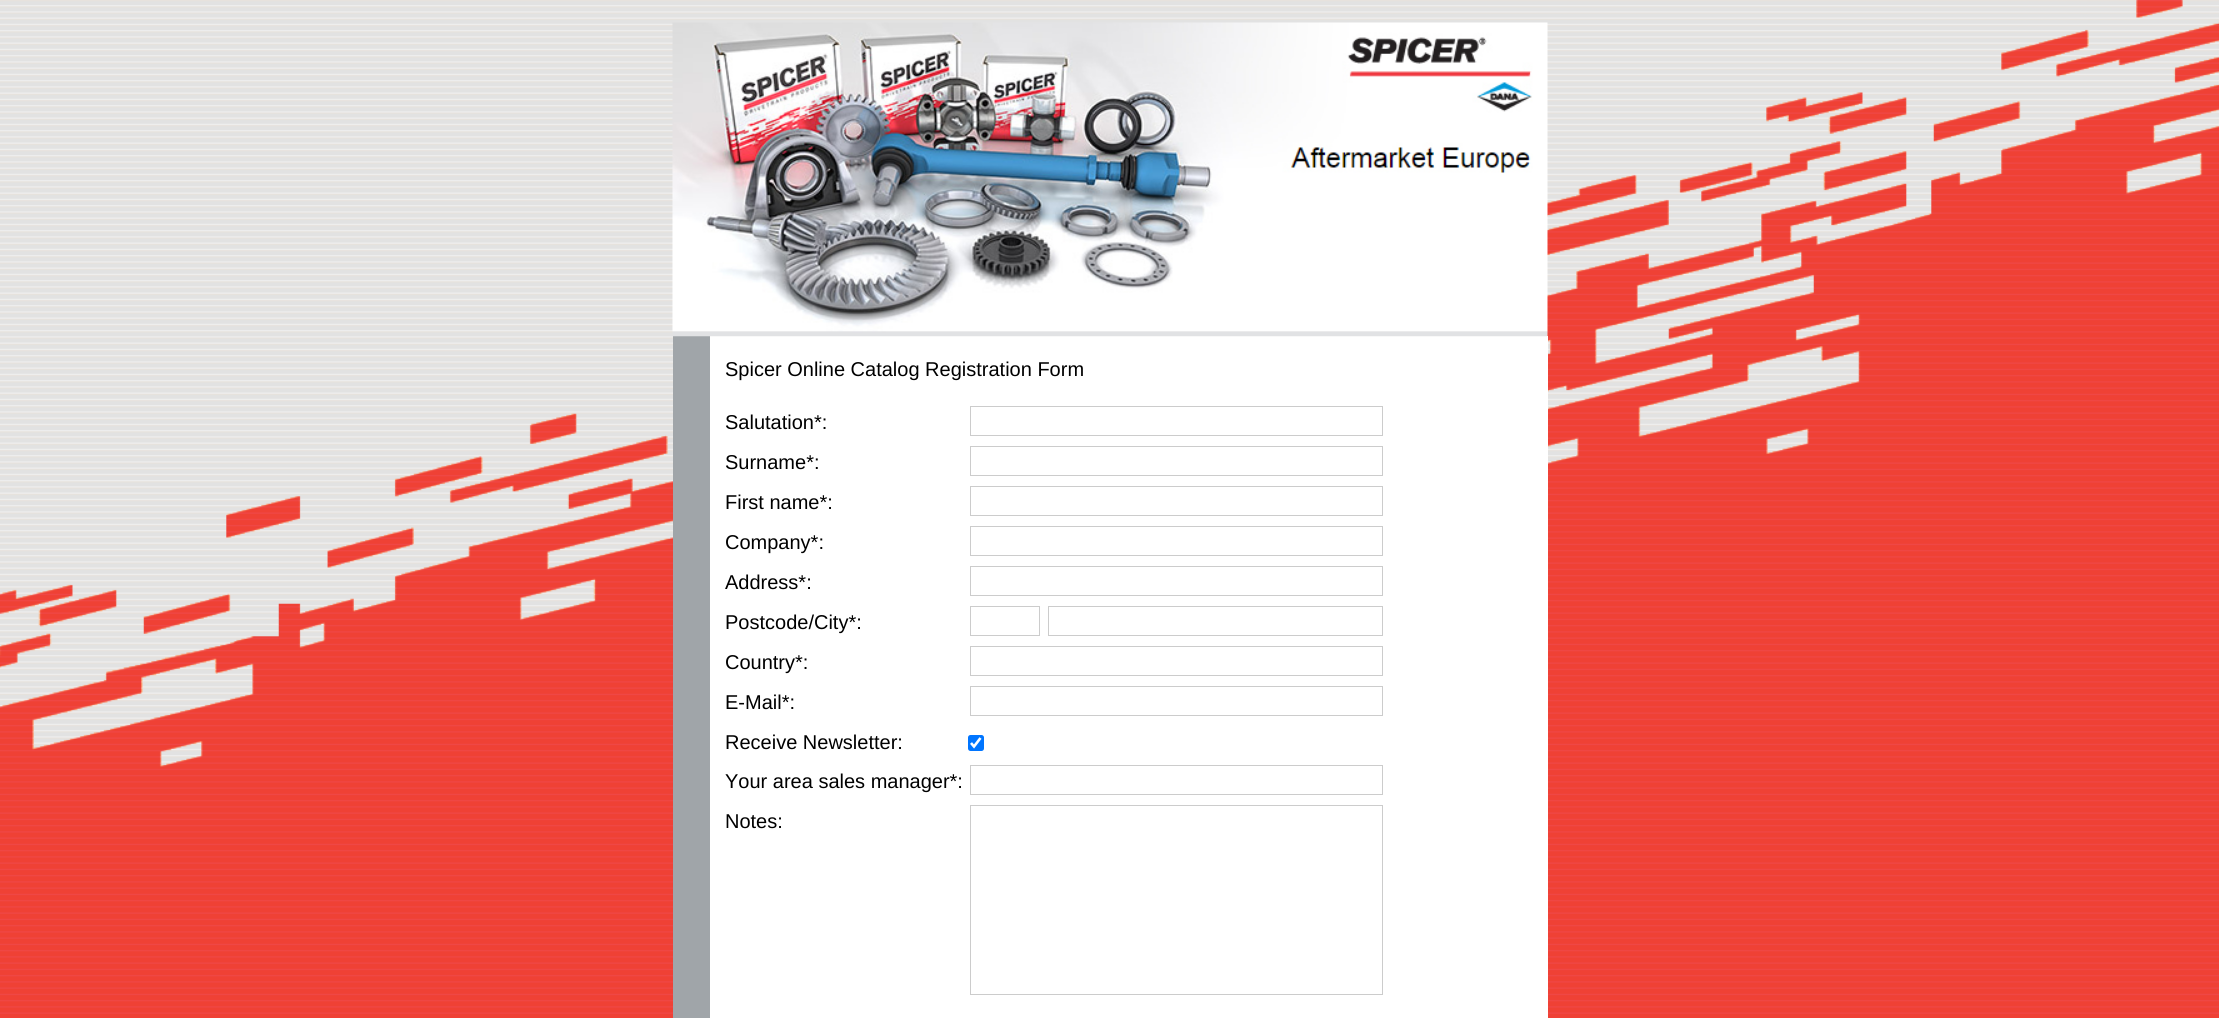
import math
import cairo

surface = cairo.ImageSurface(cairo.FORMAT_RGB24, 2219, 1018)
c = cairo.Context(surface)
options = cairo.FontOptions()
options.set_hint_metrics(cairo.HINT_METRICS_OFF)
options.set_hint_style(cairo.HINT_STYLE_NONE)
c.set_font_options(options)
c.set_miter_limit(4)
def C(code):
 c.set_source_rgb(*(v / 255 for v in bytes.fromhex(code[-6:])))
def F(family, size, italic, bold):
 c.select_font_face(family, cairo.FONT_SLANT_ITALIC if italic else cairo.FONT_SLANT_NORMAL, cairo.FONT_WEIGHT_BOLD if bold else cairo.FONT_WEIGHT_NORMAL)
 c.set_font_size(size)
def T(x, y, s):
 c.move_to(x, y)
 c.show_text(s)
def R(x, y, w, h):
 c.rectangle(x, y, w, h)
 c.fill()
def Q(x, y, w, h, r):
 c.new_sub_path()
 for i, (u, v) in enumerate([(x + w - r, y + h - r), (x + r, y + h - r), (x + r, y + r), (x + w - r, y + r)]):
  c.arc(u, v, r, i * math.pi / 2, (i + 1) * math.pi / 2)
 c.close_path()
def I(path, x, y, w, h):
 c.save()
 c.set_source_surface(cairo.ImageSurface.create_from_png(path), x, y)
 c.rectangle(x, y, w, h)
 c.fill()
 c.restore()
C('ffffff')
c.paint()
I('1.png',0,0,2219,1018)
C('ffffff')
R(710,336,838,682)
C('a0a5a9')
R(673,336,37,682)
I('2.png',672,22,876,315)
F('Liberation Sans',20,0,0)
C('000000')
T(725,376,'Spicer Online Catalog Registration Form')
T(725,429,'Salutation*:')
c.rectangle(970.5,406.5,412,29)
C('cccccc')
c.set_line_width(1)
c.stroke()
C('000000')
T(725,469,'Surname*:')
c.rectangle(970.5,446.5,412,29)
C('cccccc')
c.stroke()
C('000000')
T(725,509,'First name*:')
c.rectangle(970.5,486.5,412,29)
C('cccccc')
c.stroke()
C('000000')
T(725,549,'Company*:')
c.rectangle(970.5,526.5,412,29)
C('cccccc')
c.stroke()
C('000000')
T(725,589,'Address*:')
c.rectangle(970.5,566.5,412,29)
C('cccccc')
c.stroke()
C('000000')
T(725,629,'Postcode/City*:')
c.rectangle(970.5,606.5,69,29)
C('cccccc')
c.stroke()
c.rectangle(1048.5,606.5,334,29)
c.stroke()
C('000000')
T(725,669,'Country*:')
c.rectangle(970.5,646.5,412,29)
C('cccccc')
c.stroke()
C('000000')
T(725,709,'E-Mail*:')
c.rectangle(970.5,686.5,412,29)
C('cccccc')
c.stroke()
C('000000')
T(725,749,'Receive Newsletter:')
C('0075ff')
Q(968,735,16,16,2.5)
c.fill()
c.new_path()
c.move_to(971,743)
c.line_to(974,746.5)
c.line_to(980.5,738)
C('ffffff')
c.set_line_width(2.6)
c.stroke()
C('000000')
T(725,788,'Your area sales manager*:')
c.rectangle(970.5,765.5,412,29)
C('cccccc')
c.set_line_width(1)
c.stroke()
C('000000')
T(725,828,'Notes:')
c.rectangle(970.5,805.5,412,189)
C('cccccc')
c.stroke()
surface.write_to_png('o.png')
